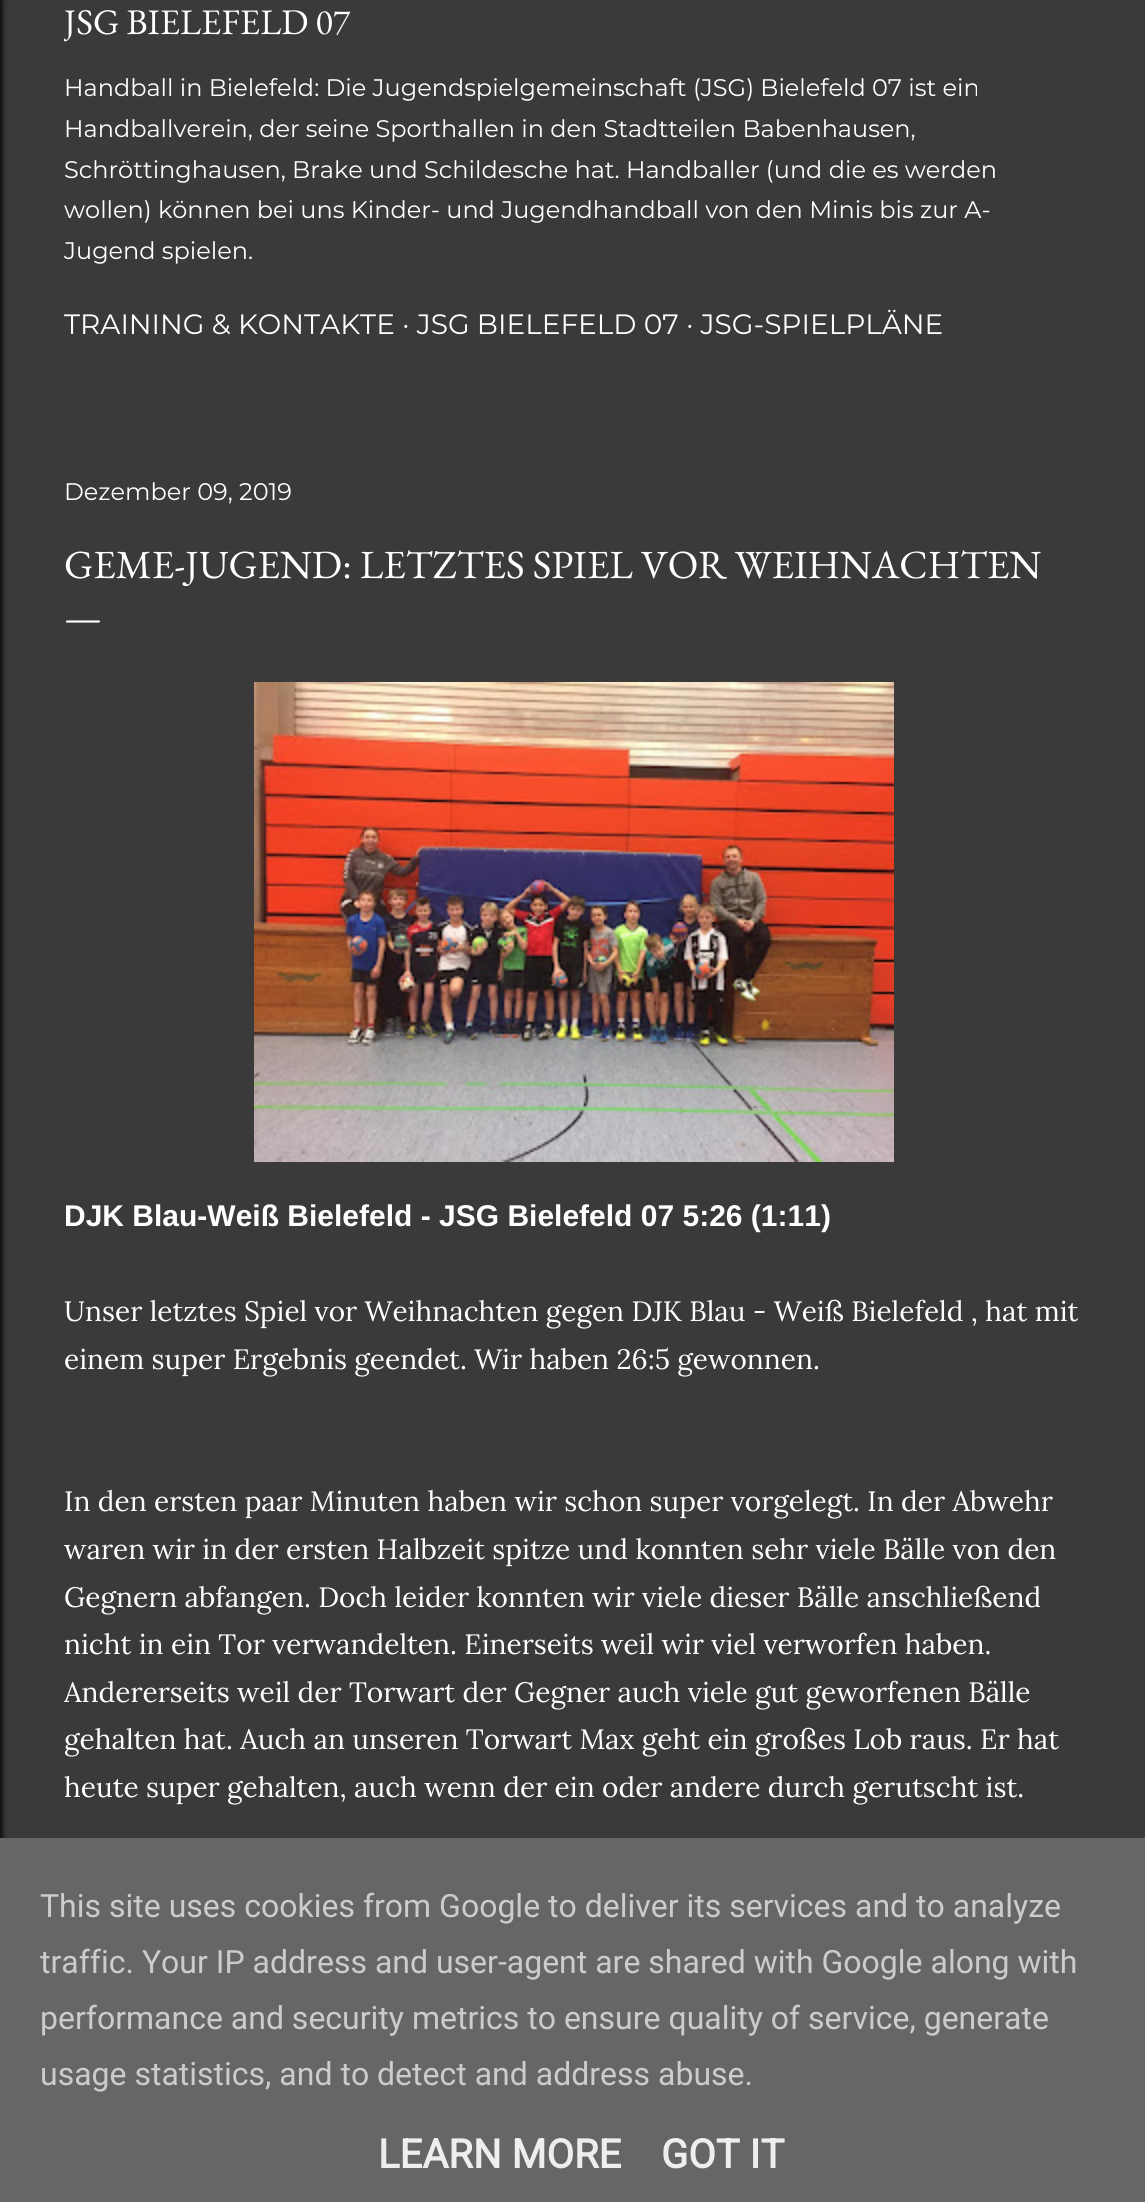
import math
import cairo

surface = cairo.ImageSurface(cairo.FORMAT_RGB24, 1145, 2202)
c = cairo.Context(surface)
options = cairo.FontOptions()
options.set_hint_metrics(cairo.HINT_METRICS_OFF)
options.set_hint_style(cairo.HINT_STYLE_NONE)
c.set_font_options(options)
c.set_miter_limit(4)
def C(code):
 c.set_source_rgb(*(v / 255 for v in bytes.fromhex(code[-6:])))
def F(family, size, italic, bold):
 c.select_font_face(family, cairo.FONT_SLANT_ITALIC if italic else cairo.FONT_SLANT_NORMAL, cairo.FONT_WEIGHT_BOLD if bold else cairo.FONT_WEIGHT_NORMAL)
 c.set_font_size(size)
def T(x, y, s):
 c.move_to(x, y)
 c.show_text(s)
def R(x, y, w, h):
 c.rectangle(x, y, w, h)
 c.fill()
def Q(x, y, w, h, r):
 c.new_sub_path()
 for i, (u, v) in enumerate([(x + w - r, y + h - r), (x + r, y + h - r), (x + r, y + r), (x + w - r, y + r)]):
  c.arc(u, v, r, i * math.pi / 2, (i + 1) * math.pi / 2)
 c.close_path()
def S(x, y, w, h, r, blur, alpha):
 c.push_group_with_content(cairo.CONTENT_ALPHA)
 c.set_operator(cairo.OPERATOR_SOURCE)
 for i in range(15, -16, -2):
  e = blur * i / 6
  if min(w, h) + 2 * e > 0:
   c.set_source_rgba(0, 0, 0, alpha * math.erfc((i - 1) / 8.5) / 2)
   Q(x - e, y - e, w + 2 * e, h + 2 * e, max(0, min(r + e + blur * .6, min(w, h) / 2 + e)))
   c.fill()
 c.mask(c.pop_group())
def I(path, x, y, w, h):
 c.save()
 c.set_source_surface(cairo.ImageSurface.create_from_png(path), x, y)
 c.rectangle(x, y, w, h)
 c.fill()
 c.restore()
C('3a3a3a')
c.paint()
C('000000')
S(-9,0,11,2202,0,3,1)
c.save()
c.rectangle(64,0,1018,352)
c.clip()
F('EB Garamond',36,0,0)
C('ffffff')
T(64,34,'JSG BIELEFELD 07')
c.restore()
F('Montserrat',24,0,0)
C('ffffff')
T(64,96,'Handball in Bielefeld: Die Jugendspielgemeinschaft (JSG) Bielefeld 07 ist ein')
T(64,137,'Handballverein, der seine Sporthallen in den Stadtteilen Babenhausen,')
T(64,178,'Schröttinghausen, Brake und Schildesche hat. Handballer (und die es werden')
T(64,218,'wollen) können bei uns Kinder- und Jugendhandball von den Minis bis zur A-')
T(64,259,'Jugend spielen.')
F('Montserrat',28,0,0)
T(64,334,'TRAINING & KONTAKTE · JSG BIELEFELD 07 · JSG-SPIELPLÄNE')
F('Montserrat',24,0,0)
T(64,500,'Dezember 09, 2019')
F('EB Garamond',40,0,0)
T(64,578,'GEME-JUGEND: LETZTES SPIEL VOR WEIHNACHTEN')
T(64,630,'—')
I('1.png',254,682,640,480)
F('Liberation Sans',30,0,1)
T(64,1226,'DJK Blau-Weiß Bielefeld - JSG Bielefeld 07 5:26 (1:11)')
F('Lora',28,0,0)
T(64,1321,'Unser letztes Spiel vor Weihnachten gegen DJK Blau - Weiß Bielefeld , hat mit')
T(64,1369,'einem super Ergebnis geendet. Wir haben 26:5 gewonnen.')
T(64,1511,'In den ersten paar Minuten haben wir schon super vorgelegt. In der Abwehr')
T(64,1559,'waren wir in der ersten Halbzeit spitze und konnten sehr viele Bälle von den')
T(64,1607,'Gegnern abfangen. Doch leider konnten wir viele dieser Bälle anschließend')
T(64,1654,'nicht in ein Tor verwandelten. Einerseits weil wir viel verworfen haben.')
T(64,1702,'Andererseits weil der Torwart der Gegner auch viele gut geworfenen Bälle')
T(64,1749,'gehalten hat. Auch an unseren Torwart Max geht ein großes Lob raus. Er hat')
T(64,1797,'heute super gehalten, auch wenn der ein oder andere durch gerutscht ist.')
C('666666')
R(0,1838,1145,364)
F('Roboto',32,0,0)
C('cccccc')
T(40,1917,'This site uses cookies from Google to deliver its services and to analyze')
T(40,1973,'traffic. Your IP address and user-agent are shared with Google along with')
T(40,2029,'performance and security metrics to ensure quality of service, generate')
T(40,2085,'usage statistics, and to detect and address abuse.')
F('Roboto',40,0,1)
C('eeeeee')
T(378,2168,'LEARN MORE')
T(661,2168,'GOT IT')
surface.write_to_png('o.png')
